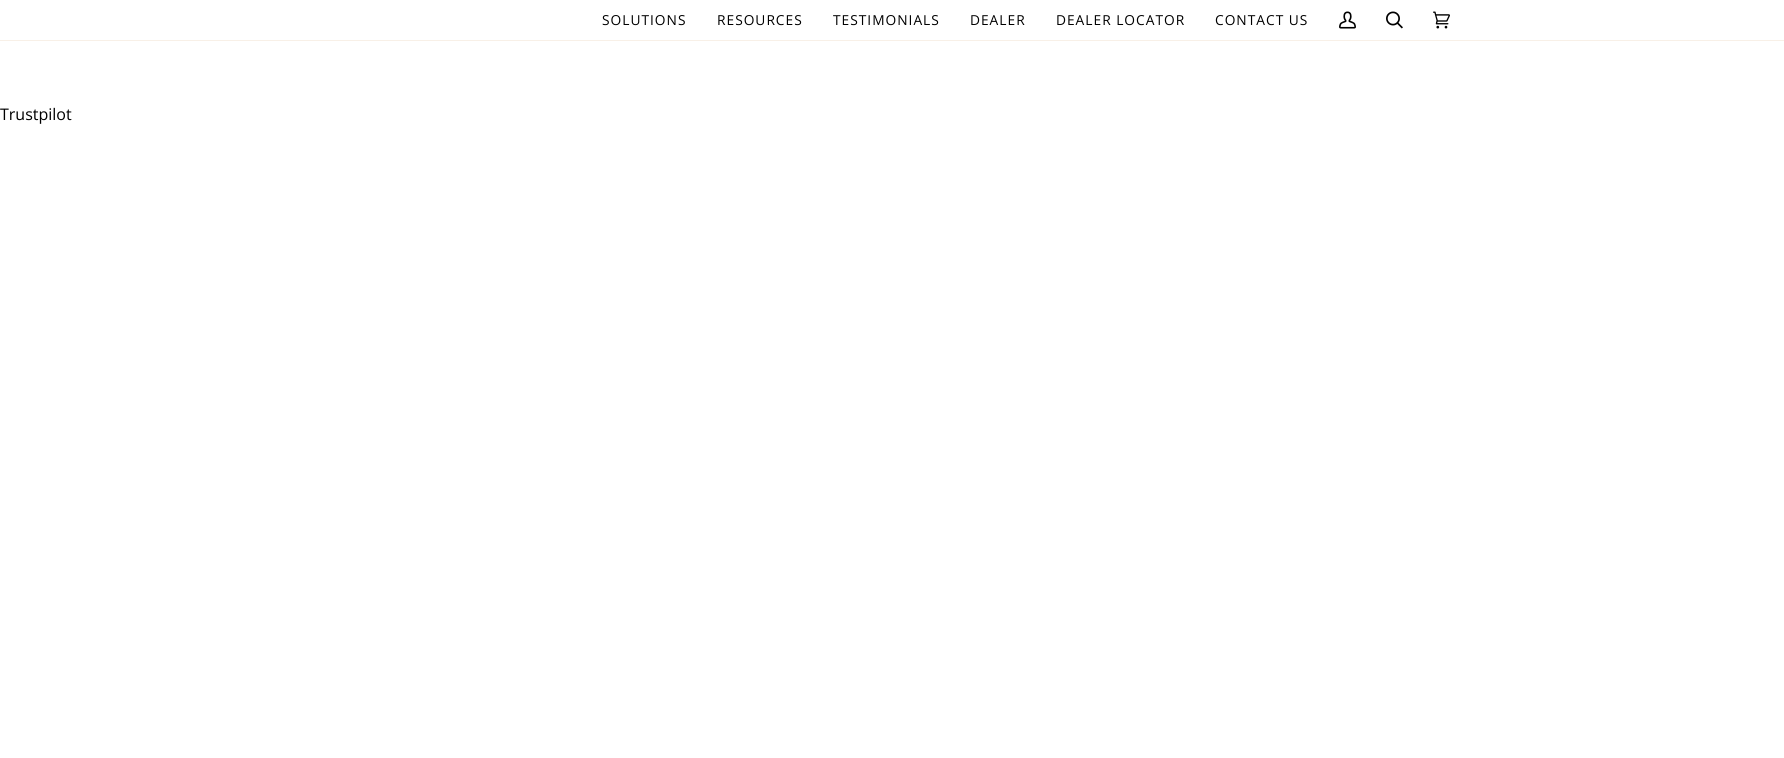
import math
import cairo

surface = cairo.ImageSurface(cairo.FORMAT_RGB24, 1784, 758)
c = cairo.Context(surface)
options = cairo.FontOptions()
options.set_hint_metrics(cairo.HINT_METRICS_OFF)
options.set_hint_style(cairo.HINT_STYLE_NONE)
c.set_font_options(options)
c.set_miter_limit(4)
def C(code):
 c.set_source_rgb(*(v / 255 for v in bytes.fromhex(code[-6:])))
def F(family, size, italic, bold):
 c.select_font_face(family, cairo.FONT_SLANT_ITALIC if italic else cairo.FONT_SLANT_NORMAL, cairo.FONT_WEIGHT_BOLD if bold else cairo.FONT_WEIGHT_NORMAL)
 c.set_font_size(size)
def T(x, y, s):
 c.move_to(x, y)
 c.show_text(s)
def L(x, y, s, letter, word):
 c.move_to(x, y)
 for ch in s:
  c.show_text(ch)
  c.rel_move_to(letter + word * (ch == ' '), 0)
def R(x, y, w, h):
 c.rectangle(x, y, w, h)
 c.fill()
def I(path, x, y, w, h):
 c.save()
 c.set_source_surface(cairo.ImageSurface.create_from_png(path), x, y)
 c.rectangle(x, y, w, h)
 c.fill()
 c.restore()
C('ffffff')
c.paint()
C('f8f0e7')
R(0,40,1784,1)
F('Open Sans',13.75,0,0)
C('000000')
L(602,25,'SOLUTIONS',1,0)
L(717,25,'RESOURCES',1,0)
L(833,25,'TESTIMONIALS',1,0)
L(970,25,'DEALER',1,0)
L(1056,25,'DEALER LOCATOR',1,0)
L(1215,25,'CONTACT US',1,0)
I('1.png',1339,11,17,18)
I('2.png',1386,11,17,18)
I('3.png',1433,11,17,18)
F('Open Sans',16,0,0)
T(0,120,'Trustpilot')
surface.write_to_png('o.png')
